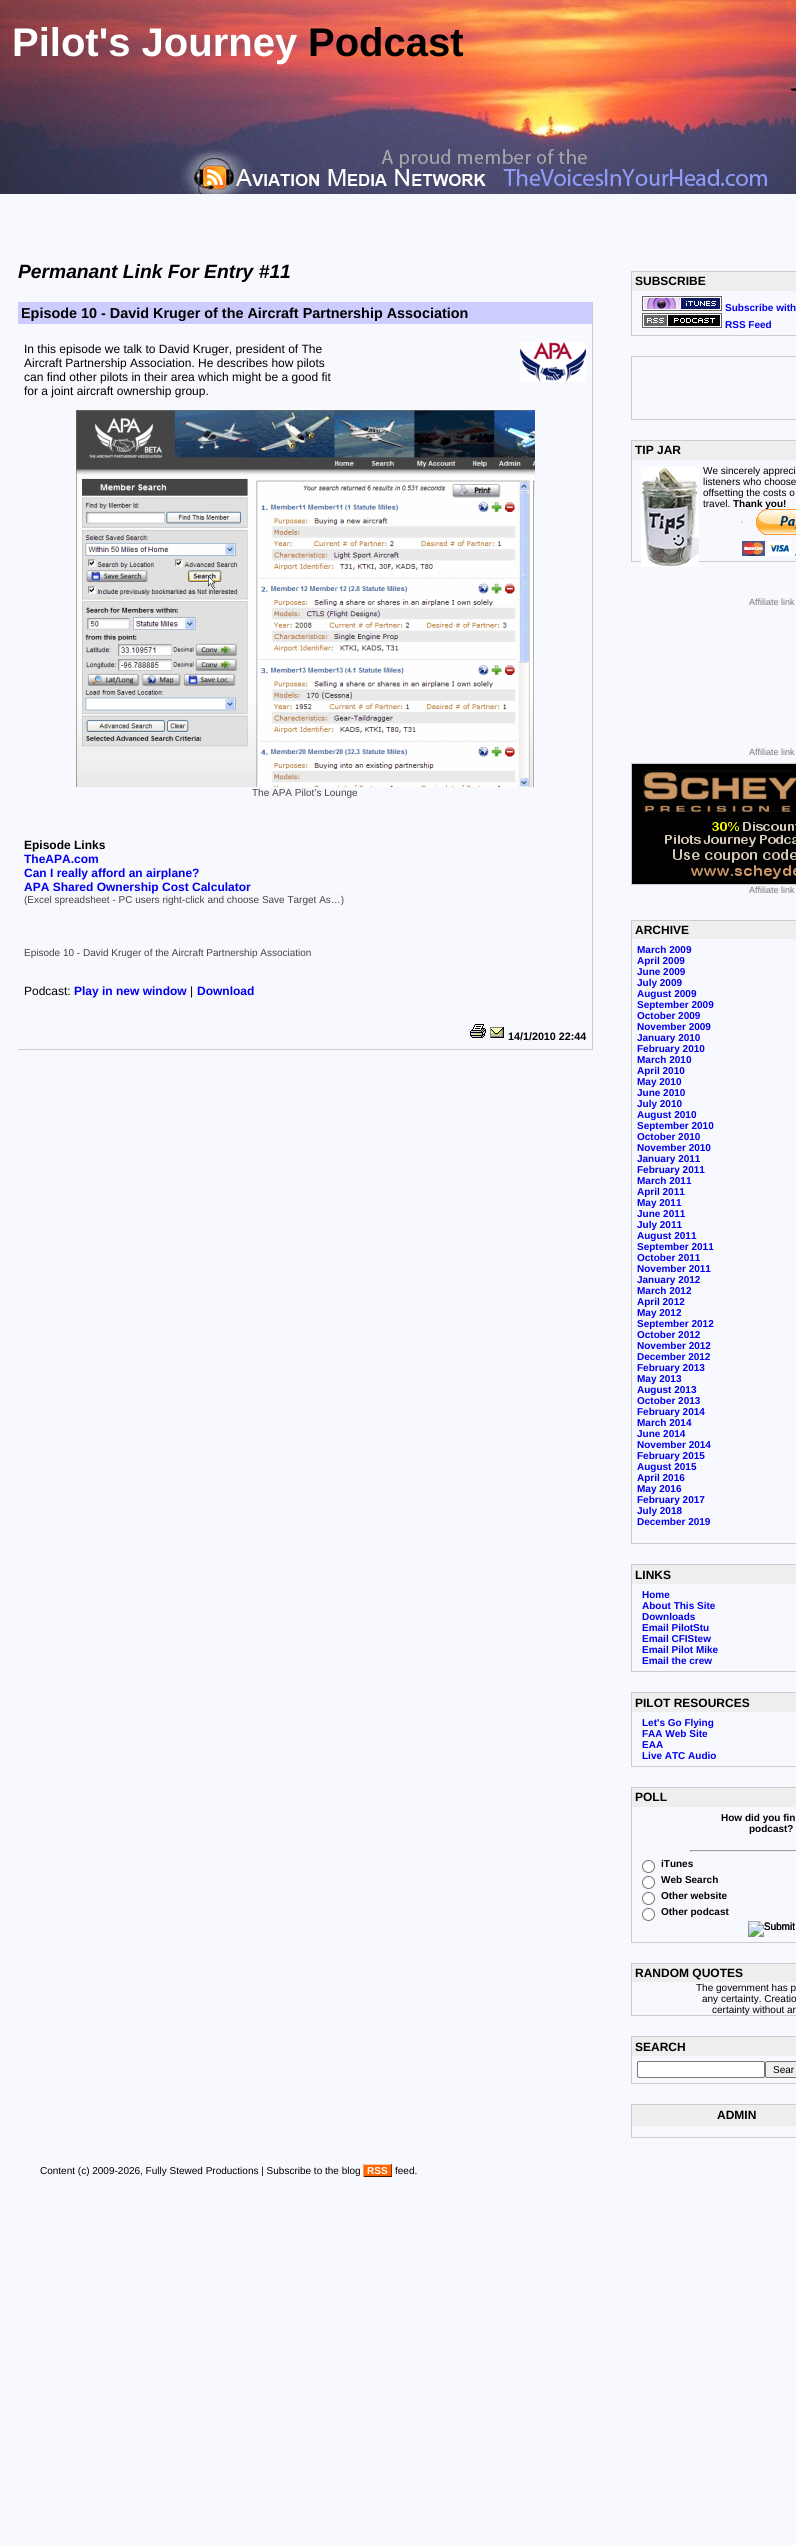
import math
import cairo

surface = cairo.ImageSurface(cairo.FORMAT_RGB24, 796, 2545)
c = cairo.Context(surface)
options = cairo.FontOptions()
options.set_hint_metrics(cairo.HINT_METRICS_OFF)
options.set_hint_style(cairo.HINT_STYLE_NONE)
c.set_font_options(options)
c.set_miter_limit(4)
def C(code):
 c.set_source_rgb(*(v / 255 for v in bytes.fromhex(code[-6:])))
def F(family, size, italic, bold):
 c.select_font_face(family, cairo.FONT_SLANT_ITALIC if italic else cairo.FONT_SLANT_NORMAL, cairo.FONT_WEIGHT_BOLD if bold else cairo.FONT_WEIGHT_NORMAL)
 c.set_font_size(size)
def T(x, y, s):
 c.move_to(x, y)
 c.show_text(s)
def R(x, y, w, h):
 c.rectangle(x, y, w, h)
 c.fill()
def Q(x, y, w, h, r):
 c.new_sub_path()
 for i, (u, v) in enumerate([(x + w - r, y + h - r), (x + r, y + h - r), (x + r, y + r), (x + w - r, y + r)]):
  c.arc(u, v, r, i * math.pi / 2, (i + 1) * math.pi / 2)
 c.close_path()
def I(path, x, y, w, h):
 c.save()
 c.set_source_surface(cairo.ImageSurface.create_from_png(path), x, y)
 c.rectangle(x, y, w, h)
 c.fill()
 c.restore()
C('f8f8ff')
c.paint()
I('1.png',0,0,796,194)
F('Liberation Sans',40,0,1)
C('ffffff')
T(12,56,'Pilot\'s Journey')
C('000000')
T(308,56,'Podcast')
I('2.png',180,149,587,45)
F('Liberation Sans',19.25,1,1)
T(18,278,'Permanant Link For Entry #11')
C('cccccc')
R(592,302,1,748)
R(18,1049,575,1)
C('ccccff')
R(18,302,574,22)
F('Liberation Sans',14.4,0,1)
C('000000')
T(21,318,'Episode 10 - David Kruger of the Aircraft Partnership Association')
F('Liberation Sans',12,0,0)
T(24,353,'In this episode we talk to David Kruger, president of The')
T(24,367,'Aircraft Partnership Association. He describes how pilots')
T(24,381,'can find other pilots in their area which might be a good fit')
T(24,395,'for a joint aircraft ownership group.')
I('3.png',520,342,66,40)
I('4.png',76,410,459,377)
F('Liberation Sans',10,0,0)
C('444444')
T(252,796,'The APA Pilot’s Lounge')
F('Liberation Sans',12,0,1)
C('000000')
T(24,849,'Episode Links')
C('0000ee')
T(24,863,'TheAPA.com')
T(24,877,'Can I really afford an airplane?')
T(24,891,'APA Shared Ownership Cost Calculator')
F('Liberation Sans',10,0,0)
C('444444')
T(24,903,'(Excel spreadsheet - PC users right-click and choose Save Target As…)')
T(24,956,'Episode 10 - David Kruger of the Aircraft Partnership Association')
F('Liberation Sans',12,0,0)
C('000000')
T(24,995,'Podcast:')
F('Liberation Sans',12,0,1)
C('0000ee')
T(74,995,'Play in new window')
F('Liberation Sans',12,0,0)
C('000000')
T(190,995,'|')
F('Liberation Sans',12,0,1)
C('0000ee')
T(197,995,'Download')
I('5.png',470,1024,16,14)
I('6.png',490,1027,14,11)
F('Liberation Sans',10.75,0,1)
C('000000')
T(508,1040,'14/1/2010 22:44')
c.rectangle(631.5,271.5,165,64)
C('cccccc')
c.set_line_width(1)
c.stroke()
C('eeeeee')
R(632,272,164,19)
F('Liberation Sans',12,0,1)
C('000000')
T(635,285,'SUBSCRIBE')
I('7.png',642,296,80,15)
F('Liberation Sans',10,0,1)
C('0000ee')
T(725,311,'Subscribe with')
I('8.png',642,313,80,15)
T(725,328,'RSS Feed')
c.rectangle(631.5,356.5,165,63)
C('cccccc')
c.stroke()
c.rectangle(631.5,440.5,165,121)
c.stroke()
C('eeeeee')
R(632,441,164,19)
F('Liberation Sans',12,0,1)
C('000000')
T(635,454,'TIP JAR')
I('9.png',641,467,58,100)
F('Liberation Sans',10,0,0)
T(703,474,'We sincerely appreci')
T(703,485,'listeners who choose')
T(703,496,'offsetting the costs o')
T(703,507,'travel.')
F('Liberation Sans',10,0,1)
T(733,507,'Thank you!')
I('10.png',740,509,56,47)
F('Liberation Sans',9,0,0)
C('777777')
T(749,605,'Affiliate link')
T(749,755,'Affiliate link')
c.rectangle(631.5,763.5,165,121)
C('cccccc')
c.stroke()
I('11.png',632,764,164,120)
C('777777')
T(749,893,'Affiliate link')
c.rectangle(631.5,920.5,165,623)
C('cccccc')
c.stroke()
C('eeeeee')
R(632,921,164,18)
F('Liberation Sans',12,0,1)
C('000000')
T(635,934,'ARCHIVE')
F('Liberation Sans',10,0,1)
C('0000ee')
T(637,953,'March 2009')
T(637,964,'April 2009')
T(637,975,'June 2009')
T(637,986,'July 2009')
T(637,997,'August 2009')
T(637,1008,'September 2009')
T(637,1019,'October 2009')
T(637,1030,'November 2009')
T(637,1041,'January 2010')
T(637,1052,'February 2010')
T(637,1063,'March 2010')
T(637,1074,'April 2010')
T(637,1085,'May 2010')
T(637,1096,'June 2010')
T(637,1107,'July 2010')
T(637,1118,'August 2010')
T(637,1129,'September 2010')
T(637,1140,'October 2010')
T(637,1151,'November 2010')
T(637,1162,'January 2011')
T(637,1173,'February 2011')
T(637,1184,'March 2011')
T(637,1195,'April 2011')
T(637,1206,'May 2011')
T(637,1217,'June 2011')
T(637,1228,'July 2011')
T(637,1239,'August 2011')
T(637,1250,'September 2011')
T(637,1261,'October 2011')
T(637,1272,'November 2011')
T(637,1283,'January 2012')
T(637,1294,'March 2012')
T(637,1305,'April 2012')
T(637,1316,'May 2012')
T(637,1327,'September 2012')
T(637,1338,'October 2012')
T(637,1349,'November 2012')
T(637,1360,'December 2012')
T(637,1371,'February 2013')
T(637,1382,'May 2013')
T(637,1393,'August 2013')
T(637,1404,'October 2013')
T(637,1415,'February 2014')
T(637,1426,'March 2014')
T(637,1437,'June 2014')
T(637,1448,'November 2014')
T(637,1459,'February 2015')
T(637,1470,'August 2015')
T(637,1481,'April 2016')
T(637,1492,'May 2016')
T(637,1503,'February 2017')
T(637,1514,'July 2018')
T(637,1525,'December 2019')
c.rectangle(631.5,1564.5,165,107)
C('cccccc')
c.stroke()
C('eeeeee')
R(632,1565,164,19)
F('Liberation Sans',12,0,1)
C('000000')
T(635,1579,'LINKS')
F('Liberation Sans',10,0,1)
C('0000ee')
T(642,1598,'Home')
T(642,1609,'About This Site')
T(642,1620,'Downloads')
T(642,1631,'Email PilotStu')
T(642,1642,'Email CFIStew')
T(642,1653,'Email Pilot Mike')
T(642,1664,'Email the crew')
c.rectangle(631.5,1692.5,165,74)
C('cccccc')
c.stroke()
C('eeeeee')
R(632,1693,164,19)
F('Liberation Sans',12,0,1)
C('000000')
T(635,1707,'PILOT RESOURCES')
F('Liberation Sans',10,0,1)
C('0000ee')
T(642,1726,'Let\'s Go Flying')
T(642,1737,'FAA Web Site')
T(642,1748,'EAA')
T(642,1759,'Live ATC Audio')
c.rectangle(631.5,1787.5,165,155)
C('cccccc')
c.stroke()
C('eeeeee')
R(632,1788,164,19)
F('Liberation Sans',12,0,1)
C('000000')
T(635,1801,'POLL')
F('Liberation Sans',10,0,1)
T(721,1821,'How did you fin')
T(749,1832,'podcast?')
C('9f9f9f')
R(690,1850,106,1)
C('eeeeee')
R(690,1851,106,1)
C('9f9f9f')
R(690,1850,1,2)
C('ffffff')
c.new_path()
c.arc(648.5,1866.5,6,0,2 * math.pi)
c.fill_preserve()
C('767676')
c.stroke()
C('000000')
T(661,1867,'iTunes')
C('ffffff')
c.new_path()
c.arc(648.5,1882.5,6,0,2 * math.pi)
c.fill_preserve()
C('767676')
c.stroke()
C('000000')
T(661,1883,'Web Search')
C('ffffff')
c.new_path()
c.arc(648.5,1898.5,6,0,2 * math.pi)
c.fill_preserve()
C('767676')
c.stroke()
C('000000')
T(661,1899,'Other website')
C('ffffff')
c.new_path()
c.arc(648.5,1914.5,6,0,2 * math.pi)
c.fill_preserve()
C('767676')
c.stroke()
C('000000')
T(661,1915,'Other podcast')
I('12.png',748,1921,47,16)
F('Liberation Sans',10,0,0)
T(764,1930,'Submit')
c.rectangle(631.5,1963.5,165,52)
C('cccccc')
c.stroke()
C('eeeeee')
R(632,1964,164,18)
F('Liberation Sans',12,0,1)
C('000000')
T(635,1977,'RANDOM QUOTES')
F('Liberation Sans',10,0,0)
T(696,1991,'The government has p')
T(702,2002,'any certainty. Creatio')
T(712,2013,'certainty without an')
c.rectangle(631.5,2036.5,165,47)
C('cccccc')
c.stroke()
C('eeeeee')
R(632,2037,164,19)
F('Liberation Sans',12,0,1)
C('000000')
T(635,2051,'SEARCH')
C('ffffff')
Q(637.5,2061.5,127,16,1.5)
c.fill_preserve()
C('767676')
c.stroke()
C('efefef')
Q(765.5,2061.5,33,16,1.5)
c.fill_preserve()
C('767676')
c.stroke()
F('Liberation Sans',10,0,0)
C('000000')
T(773,2073,'Sear')
c.rectangle(631.5,2104.5,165,33)
C('cccccc')
c.stroke()
C('eeeeee')
R(632,2105,164,21)
F('Liberation Sans',12,0,1)
C('000000')
T(717,2119,'ADMIN')
F('Liberation Sans',10,0,0)
T(40,2174,'Content (c) 2009-2026, Fully Stewed Productions | Subscribe to the blog')
C('ff6600')
R(364,2165,27,11)
F('Liberation Sans',10,0,1)
C('ffffff')
T(367,2174,'RSS')
C('ffc8a4')
R(363,2164,29,1)
C('7d3302')
R(391,2164,1,13)
C('3f1a01')
R(363,2176,29,1)
C('ff9a57')
R(363,2164,1,13)
F('Liberation Sans',10,0,0)
C('000000')
T(395,2174,'feed.')
surface.write_to_png('o.png')
